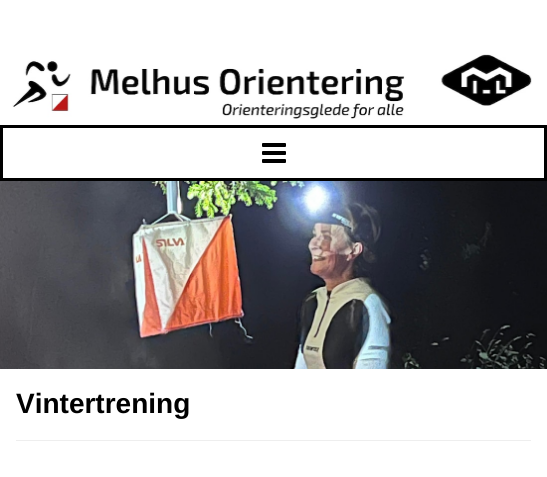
import math
import cairo

surface = cairo.ImageSurface(cairo.FORMAT_RGB24, 547, 477)
c = cairo.Context(surface)
options = cairo.FontOptions()
options.set_hint_metrics(cairo.HINT_METRICS_OFF)
options.set_hint_style(cairo.HINT_STYLE_NONE)
c.set_font_options(options)
c.set_miter_limit(4)
def C(code):
 c.set_source_rgb(*(v / 255 for v in bytes.fromhex(code[-6:])))
def F(family, size, italic, bold):
 c.select_font_face(family, cairo.FONT_SLANT_ITALIC if italic else cairo.FONT_SLANT_NORMAL, cairo.FONT_WEIGHT_BOLD if bold else cairo.FONT_WEIGHT_NORMAL)
 c.set_font_size(size)
def T(x, y, s):
 c.move_to(x, y)
 c.show_text(s)
def R(x, y, w, h):
 c.rectangle(x, y, w, h)
 c.fill()
def I(path, x, y, w, h):
 c.save()
 c.set_source_surface(cairo.ImageSurface.create_from_png(path), x, y)
 c.rectangle(x, y, w, h)
 c.fill()
 c.restore()
C('ffffff')
c.paint()
I('1.png',12,54,520,65)
c.rectangle(1.5,126.5,544,53)
C('000000')
c.set_line_width(3)
c.stroke()
I('2.png',262,143,24,20)
I('3.png',0,181,547,188)
F('Liberation Sans',28,0,1)
T(16,413,'Vintertrening')
C('eeeeee')
R(16,440,515,1)
surface.write_to_png('o.png')
